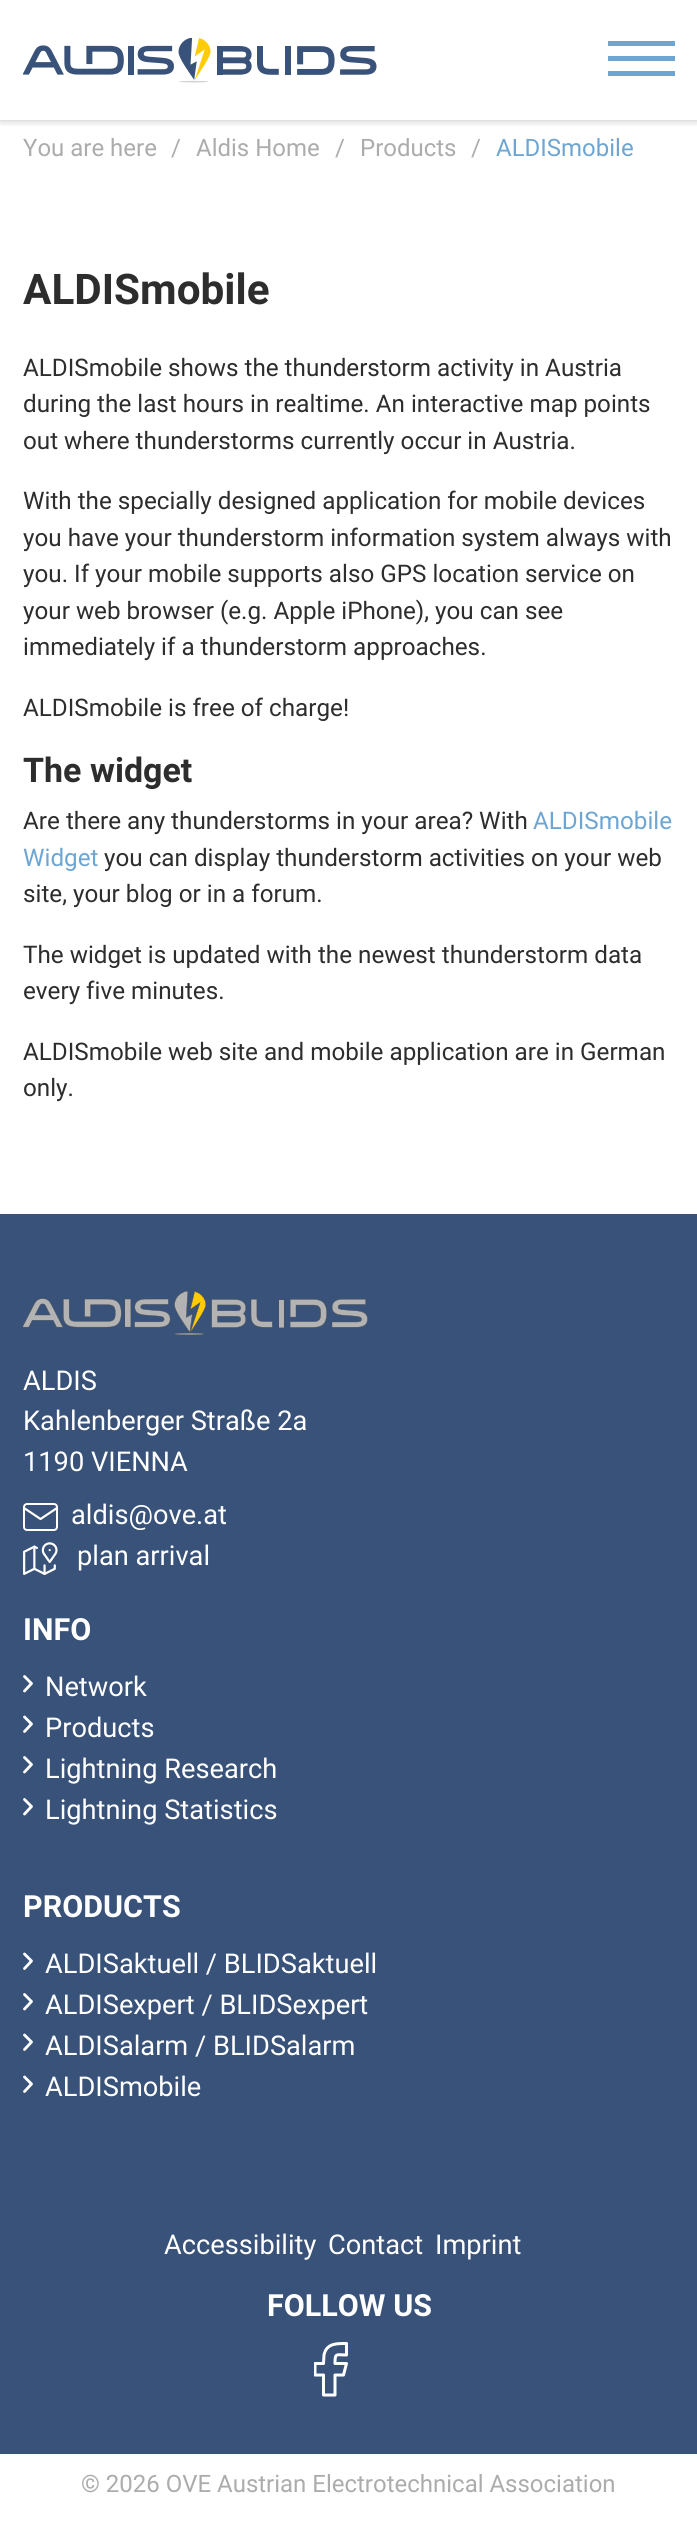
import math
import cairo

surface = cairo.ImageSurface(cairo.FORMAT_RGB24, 697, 2544)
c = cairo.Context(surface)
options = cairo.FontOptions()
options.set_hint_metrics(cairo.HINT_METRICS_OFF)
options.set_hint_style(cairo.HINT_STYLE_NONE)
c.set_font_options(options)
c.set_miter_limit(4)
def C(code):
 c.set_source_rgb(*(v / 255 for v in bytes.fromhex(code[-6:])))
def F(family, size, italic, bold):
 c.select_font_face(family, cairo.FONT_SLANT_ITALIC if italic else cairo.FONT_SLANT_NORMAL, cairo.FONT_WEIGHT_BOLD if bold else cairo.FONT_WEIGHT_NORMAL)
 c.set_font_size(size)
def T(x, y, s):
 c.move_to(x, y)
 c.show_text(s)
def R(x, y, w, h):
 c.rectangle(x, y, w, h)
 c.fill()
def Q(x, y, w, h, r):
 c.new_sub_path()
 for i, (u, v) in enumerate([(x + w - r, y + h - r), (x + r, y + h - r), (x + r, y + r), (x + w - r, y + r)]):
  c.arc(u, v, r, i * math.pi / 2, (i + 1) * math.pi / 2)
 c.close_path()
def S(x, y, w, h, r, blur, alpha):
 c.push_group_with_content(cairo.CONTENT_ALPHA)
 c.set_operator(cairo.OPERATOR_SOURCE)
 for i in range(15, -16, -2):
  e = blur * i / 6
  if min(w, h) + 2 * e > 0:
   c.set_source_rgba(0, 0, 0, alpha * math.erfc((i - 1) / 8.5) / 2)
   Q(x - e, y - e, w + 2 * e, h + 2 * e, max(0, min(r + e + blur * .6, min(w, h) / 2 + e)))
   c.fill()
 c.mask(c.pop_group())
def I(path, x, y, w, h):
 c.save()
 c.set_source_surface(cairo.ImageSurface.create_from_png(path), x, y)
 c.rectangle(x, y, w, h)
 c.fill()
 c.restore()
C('ffffff')
c.paint()
c.save()
c.rectangle(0,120,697,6)
c.clip()
C('000000')
S(0,0,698,120,0,4.5,.26)
c.restore()
I('1.png',23,38,354,45)
C('6da5d3')
R(608,41,67,5)
R(608,56,67,5)
R(608,71,67,5)
F('Roboto',24,0,0)
C('acacac')
T(23,156,'You are here')
T(171,156,'/')
T(196,156,'Aldis Home')
T(335,156,'/')
T(360,156,'Products')
T(471,156,'/')
C('6da5d3')
T(496,156,'ALDISmobile')
F('Roboto',42.25,0,1)
C('2d2d2d')
T(23,304,'ALDISmobile')
F('Roboto',24.25,0,0)
T(23,376,'ALDISmobile shows the thunderstorm activity in Austria')
T(23,412,'during the last hours in realtime. An interactive map points')
T(23,449,'out where thunderstorms currently occur in Austria.')
T(23,509,'With the specially designed application for mobile devices')
T(23,546,'you have your thunderstorm information system always with')
T(23,582,'you. If your mobile supports also GPS location service on')
T(23,619,'your web browser (e.g. Apple iPhone), you can see')
T(23,655,'immediately if a thunderstorm approaches.')
T(23,716,'ALDISmobile is free of charge!')
F('Roboto',34,0,1)
T(23,782,'The widget')
F('Roboto',24.25,0,0)
T(23,829,'Are there any thunderstorms in your area? With')
C('6da5d3')
T(533,829,'ALDISmobile')
T(23,866,'Widget')
C('2d2d2d')
T(104,866,'you can display thunderstorm activities on your web')
T(23,902,'site, your blog or in a forum.')
T(23,963,'The widget is updated with the newest thunderstorm data')
T(23,999,'every five minutes.')
T(23,1060,'ALDISmobile web site and mobile application are in German')
T(23,1096,'only.')
C('395279')
R(0,1214,697,1240)
I('2.png',23,1290,345,45)
F('Roboto',27.25,0,0)
C('ffffff')
T(23,1390,'ALDIS')
T(23,1430,'Kahlenberger Straße 2a')
T(23,1471,'1190 VIENNA')
T(71,1524,'aldis@ove.at')
Q(24,1504,33,26,3)
c.stroke()
c.new_path()
c.move_to(24,1508)
c.line_to(40.5,1519)
c.line_to(57,1508)
c.set_line_width(2.2)
c.set_line_cap(cairo.LINE_CAP_ROUND)
c.set_line_join(cairo.LINE_JOIN_ROUND)
c.stroke()
I('3.png',23,1542,35,33)
T(77,1565,'plan arrival')
F('Roboto',30.5,0,1)
T(23,1640,'INFO')
c.new_path()
c.move_to(24.5,1691)
c.line_to(31.5,1683.5)
c.line_to(24.5,1676.5)
c.set_line_width(2.8)
c.stroke()
F('Roboto',27.25,0,0)
T(45,1696,'Network')
c.new_path()
c.move_to(24.5,1731.5)
c.line_to(31.5,1724)
c.line_to(24.5,1717)
c.stroke()
T(45,1737,'Products')
c.new_path()
c.move_to(24.5,1772)
c.line_to(31.5,1764.5)
c.line_to(24.5,1757.5)
c.stroke()
T(45,1778,'Lightning Research')
c.new_path()
c.move_to(24.5,1814)
c.line_to(31.5,1806.5)
c.line_to(24.5,1799.5)
c.stroke()
T(45,1819,'Lightning Statistics')
F('Roboto',30.5,0,1)
T(23,1917,'PRODUCTS')
c.new_path()
c.move_to(24.5,1968.5)
c.line_to(31.5,1961)
c.line_to(24.5,1954)
c.stroke()
F('Roboto',27.25,0,0)
T(45,1973,'ALDISaktuell / BLIDSaktuell')
c.new_path()
c.move_to(24.5,2009)
c.line_to(31.5,2001.5)
c.line_to(24.5,1994.5)
c.stroke()
T(45,2014,'ALDISexpert / BLIDSexpert')
c.new_path()
c.move_to(24.5,2049.5)
c.line_to(31.5,2042)
c.line_to(24.5,2035)
c.stroke()
T(45,2055,'ALDISalarm / BLIDSalarm')
c.new_path()
c.move_to(24.5,2091.5)
c.line_to(31.5,2084)
c.line_to(24.5,2077)
c.stroke()
T(45,2096,'ALDISmobile')
T(164,2254,'Accessibility')
T(328,2254,'Contact')
T(435,2254,'Imprint')
F('Roboto',30.5,0,1)
T(267,2316,'FOLLOW US')
c.save()
c.rectangle(314,2342,34,55)
c.clip()
c.new_path()
c.move_to(315,2363.5)
c.line_to(315,2375)
c.line_to(323.5,2375)
c.line_to(323.5,2395)
c.line_to(335,2395)
c.line_to(335,2375)
c.line_to(343.5,2375)
c.line_to(346.5,2363.5)
c.line_to(335,2363.5)
c.curve_to(335,2352.5,336,2355,346.5,2355)
c.line_to(346.5,2343.5)
c.curve_to(337,2343.5,326.5,2343,324,2355)
c.line_to(323.5,2363.5)
c.line_to(315,2363.5)
c.set_line_width(3)
c.stroke()
c.restore()
F('Roboto',24,0,0)
C('acacac')
T(81,2492,'© 2026 OVE Austrian Electrotechnical Association')
surface.write_to_png('o.png')
